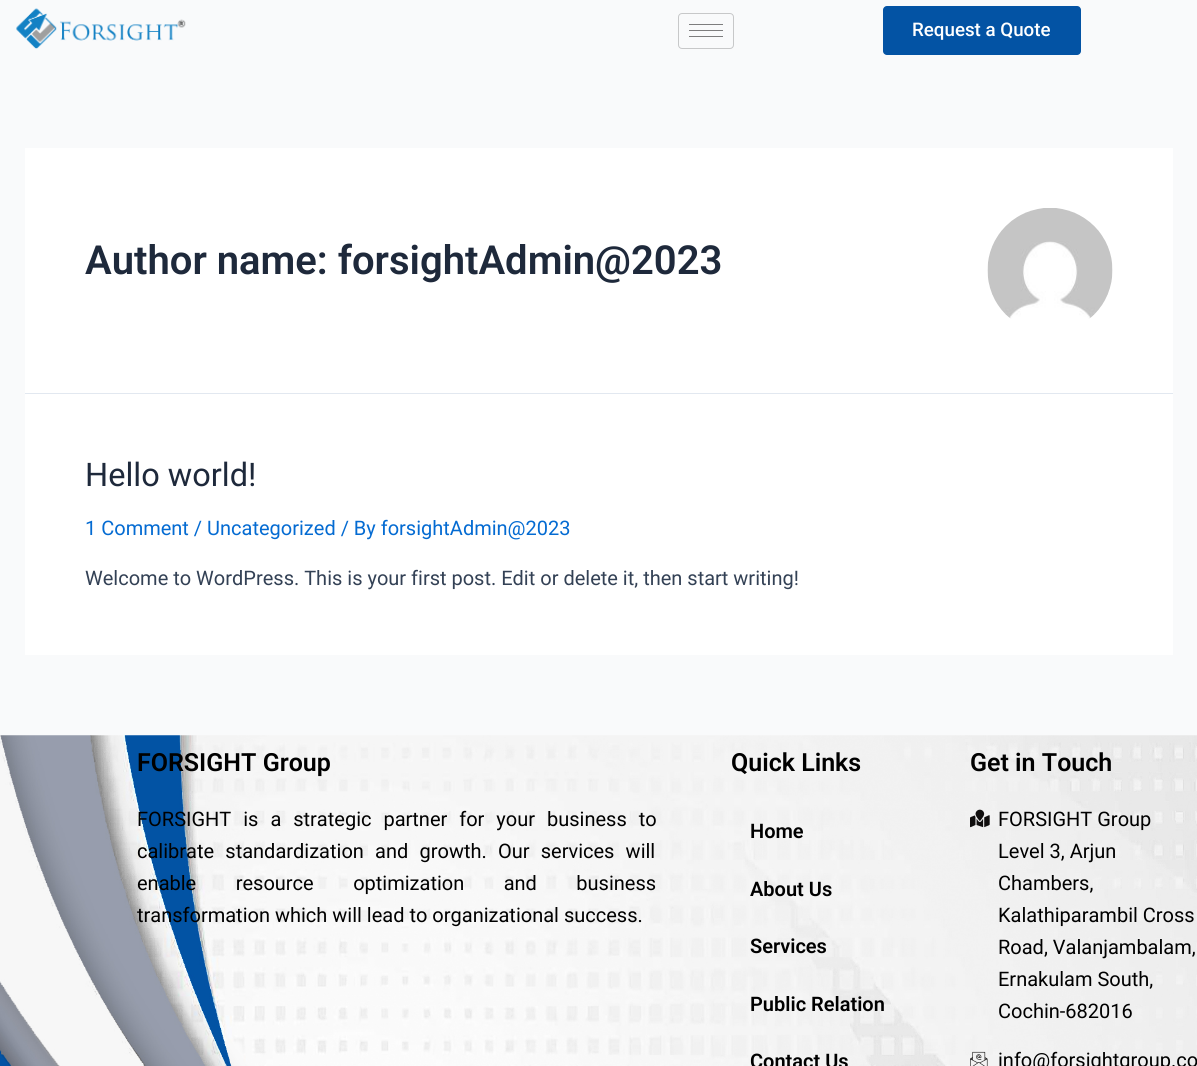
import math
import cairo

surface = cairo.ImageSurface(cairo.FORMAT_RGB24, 1197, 1066)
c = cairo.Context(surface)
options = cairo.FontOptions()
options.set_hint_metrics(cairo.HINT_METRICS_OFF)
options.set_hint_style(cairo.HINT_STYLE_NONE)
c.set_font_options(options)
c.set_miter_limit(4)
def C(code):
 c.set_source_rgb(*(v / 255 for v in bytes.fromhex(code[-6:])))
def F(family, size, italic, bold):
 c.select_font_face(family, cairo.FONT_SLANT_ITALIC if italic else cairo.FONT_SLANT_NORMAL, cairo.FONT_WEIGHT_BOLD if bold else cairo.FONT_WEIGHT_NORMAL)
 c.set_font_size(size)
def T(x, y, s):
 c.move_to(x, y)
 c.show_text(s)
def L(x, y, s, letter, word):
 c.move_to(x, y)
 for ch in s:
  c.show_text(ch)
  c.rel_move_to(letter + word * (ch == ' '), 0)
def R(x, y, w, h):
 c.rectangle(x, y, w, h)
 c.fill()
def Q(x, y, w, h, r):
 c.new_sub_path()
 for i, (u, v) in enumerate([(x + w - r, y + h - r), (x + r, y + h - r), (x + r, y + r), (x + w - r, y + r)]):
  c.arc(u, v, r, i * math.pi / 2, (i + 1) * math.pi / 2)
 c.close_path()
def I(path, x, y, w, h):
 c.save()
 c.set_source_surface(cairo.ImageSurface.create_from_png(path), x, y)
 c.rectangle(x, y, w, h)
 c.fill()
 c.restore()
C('f9fafb')
c.paint()
I('1.png',16,8,170,41)
Q(678.5,13.5,55,35,3.5)
C('c7c8c9')
c.set_line_width(1)
c.stroke()
C('7d7d7e')
R(689,24,34,1)
R(689,30,34,1)
R(689,36,34,1)
C('0353a4')
Q(883,6,198,49,4)
c.fill()
F('Roboto Medium',18.75,0,0)
C('ffffff')
T(912,36,'Request a Quote')
R(25,148,1148,245)
C('e2e8f0')
R(25,393,1148,1)
F('Roboto SemiBold',40,0,0)
C('1e293b')
T(85,274,'Author name: forsightAdmin@2023')
I('2.png',987,208,126,111)
C('ffffff')
R(25,394,1148,261)
F('Roboto',32.5,0,0)
C('1e293b')
T(85,486,'Hello world!')
F('Roboto',20,0,0)
C('046bd2')
T(85,535,'1 Comment / Uncategorized / By forsightAdmin@2023')
C('334155')
T(85,585,'Welcome to WordPress. This is your first post. Edit or delete it, then start writing!')
I('3.png',0,735,1197,331)
F('Roboto SemiBold',25,0,0)
C('000000')
T(137,771,'FORSIGHT Group')
F('Roboto',20,0,0)
L(137,826,'FORSIGHT is a strategic partner for your business to',0,7)
L(137,858,'calibrate standardization and growth. Our services will',0,6.25)
L(137,890,'enable resource optimization and business',0,34.5)
T(137,922,'transformation which will lead to organizational success.')
F('Roboto SemiBold',25,0,0)
T(731,771,'Quick Links')
F('Roboto SemiBold',20,0,0)
T(750,838,'Home')
T(750,896,'About Us')
T(750,953,'Services')
T(750,1011,'Public Relation')
T(750,1068,'Contact Us')
F('Roboto SemiBold',25,0,0)
T(970,771,'Get in Touch')
I('4.png',970,809,20,19)
F('Roboto',20,0,0)
T(998,826,'FORSIGHT Group')
T(998,858,'Level 3, Arjun')
T(998,890,'Chambers,')
T(998,922,'Kalathiparambil Cross')
T(998,954,'Road, Valanjambalam,')
T(998,986,'Ernakulam South,')
T(998,1018,'Cochin-682016')
I('5.png',970,1051,18,15)
T(998,1067,'info@forsightgroup.co')
surface.write_to_png('o.png')
